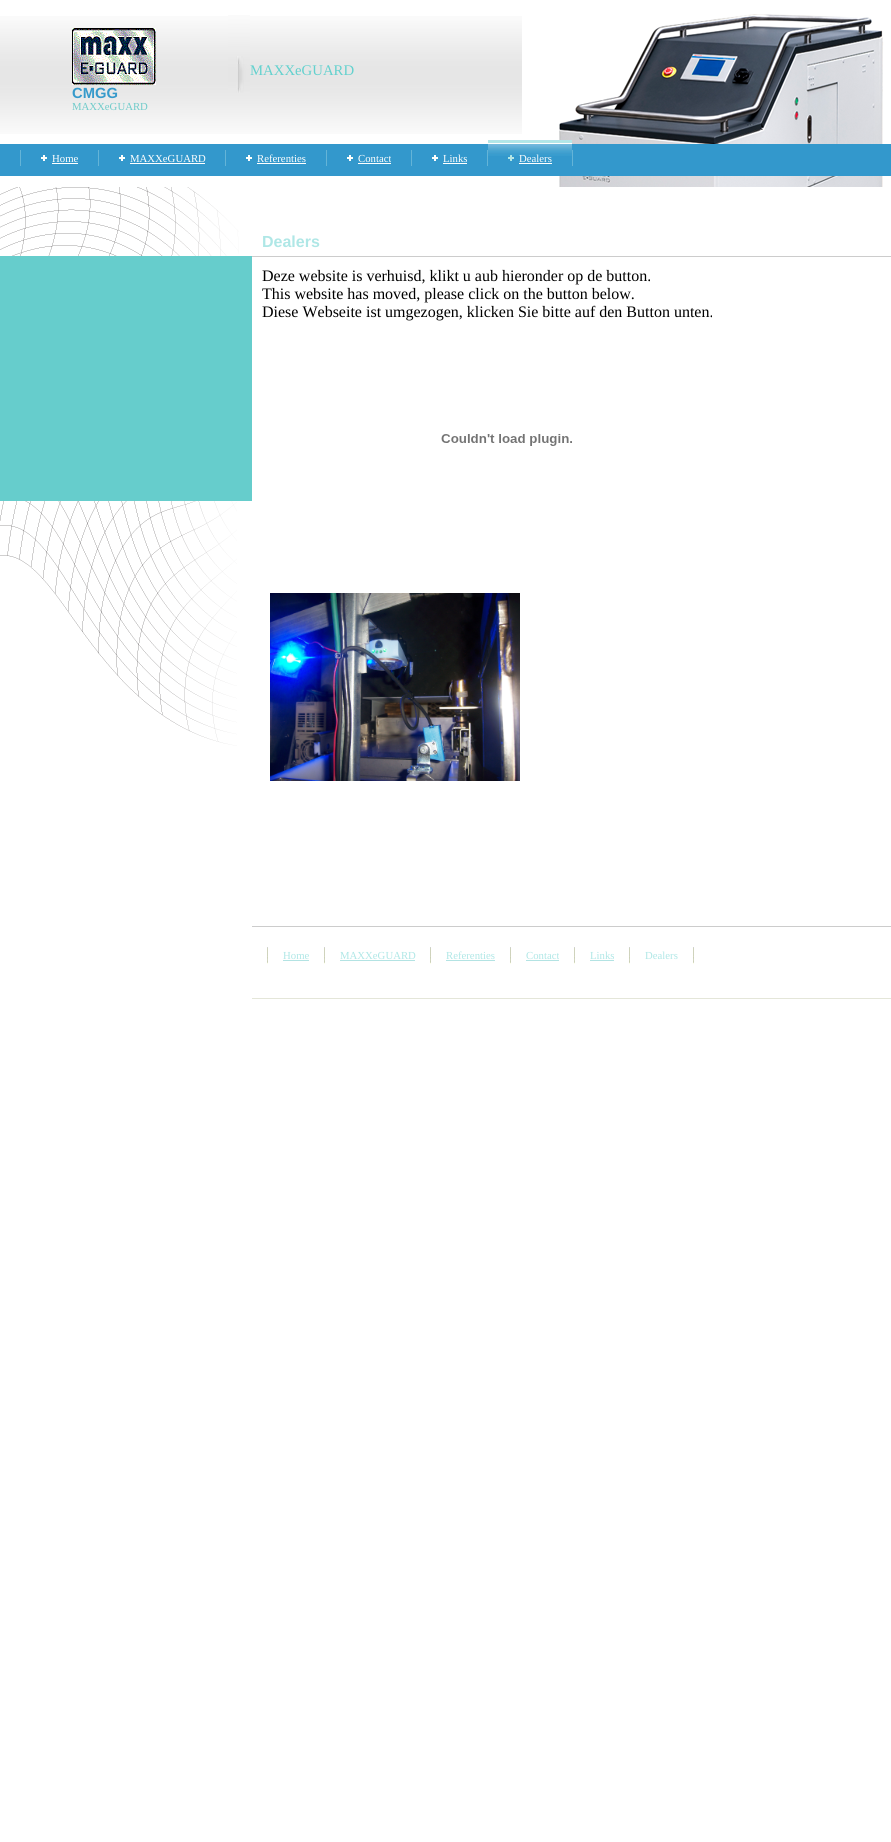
import math
import cairo

surface = cairo.ImageSurface(cairo.FORMAT_RGB24, 891, 1842)
c = cairo.Context(surface)
options = cairo.FontOptions()
options.set_hint_metrics(cairo.HINT_METRICS_OFF)
options.set_hint_style(cairo.HINT_STYLE_NONE)
c.set_font_options(options)
c.set_miter_limit(4)
def C(code):
 c.set_source_rgb(*(v / 255 for v in bytes.fromhex(code[-6:])))
def F(family, size, italic, bold):
 c.select_font_face(family, cairo.FONT_SLANT_ITALIC if italic else cairo.FONT_SLANT_NORMAL, cairo.FONT_WEIGHT_BOLD if bold else cairo.FONT_WEIGHT_NORMAL)
 c.set_font_size(size)
def T(x, y, s):
 c.move_to(x, y)
 c.show_text(s)
def R(x, y, w, h):
 c.rectangle(x, y, w, h)
 c.fill()
def I(path, x, y, w, h):
 c.save()
 c.set_source_surface(cairo.ImageSurface.create_from_png(path), x, y)
 c.rectangle(x, y, w, h)
 c.fill()
 c.restore()
C('ffffff')
c.paint()
I('1.png',0,16,522,118)
I('2.png',522,14,369,173)
I('3.png',228,15,22,78)
F('Liberation Serif',14.75,0,0)
C('63d1ce')
T(250,75,'MAXXeGUARD')
I('4.png',72,28,84,57)
F('Liberation Sans',14.75,0,1)
C('369acb')
T(72,98,'CMGG')
F('Liberation Serif',10.75,0,0)
C('6fcbca')
T(72,110,'MAXXeGUARD')
C('3398cc')
R(0,144,891,32)
I('5.png',488,140,31,16)
I('6.png',508,155,6,6)
I('7.png',552,140,20,16)
C('64b4d7')
R(20,150,1,16)
I('8.png',41,155,6,6)
C('ffffff')
T(52,162,'Home')
R(52,163,26,1)
C('64b4d7')
R(98,150,1,16)
I('8.png',119,155,6,6)
C('ffffff')
T(130,162,'MAXXeGUARD')
R(130,163,75,1)
C('64b4d7')
R(225,150,1,16)
I('8.png',246,155,6,6)
C('ffffff')
T(257,162,'Referenties')
R(257,163,49,1)
C('64b4d7')
R(326,150,1,16)
I('8.png',347,155,6,6)
C('ffffff')
T(358,162,'Contact')
R(358,163,33,1)
C('64b4d7')
R(411,150,1,16)
I('8.png',432,155,6,6)
C('ffffff')
T(443,162,'Links')
R(443,163,24,1)
C('64b4d7')
R(487,150,1,16)
I('9.png',519,140,33,16)
C('ffffff')
T(519,162,'Dealers')
R(519,163,33,1)
C('64b4d7')
R(572,150,1,16)
I('10.png',0,187,239,69)
C('66cdcc')
R(0,256,252,245)
I('11.png',0,501,237,245)
F('Liberation Sans',16,0,1)
C('afe7e6')
T(262,247,'Dealers')
C('cccccc')
R(252,256,639,1)
F('Liberation Serif',16,0,0)
C('000000')
T(262,281,'Deze website is verhuisd, klikt u aub hieronder op de button.')
T(262,299,'This website has moved, please click on the button below.')
T(262,317,'Diese Webseite ist umgezogen, klicken Sie bitte auf den Button unten.')
I('12.png',441,434,131,12)
I('13.png',270,593,250,188)
C('cccccc')
R(252,926,639,1)
I('14.png',267,947,1,17)
F('Liberation Serif',10.75,0,0)
C('afe7e6')
T(283,959,'Home')
C('b3e3e3')
R(283,960,26,1)
I('14.png',324,947,1,17)
C('afe7e6')
T(340,959,'MAXXeGUARD')
C('b3e3e3')
R(340,960,75,1)
I('14.png',430,947,1,17)
C('afe7e6')
T(446,959,'Referenties')
C('b3e3e3')
R(446,960,49,1)
I('14.png',510,947,1,17)
C('afe7e6')
T(526,959,'Contact')
C('b3e3e3')
R(526,960,33,1)
I('14.png',574,947,1,17)
C('afe7e6')
T(590,959,'Links')
C('b3e3e3')
R(590,960,24,1)
I('14.png',629,947,1,17)
C('afe7e6')
T(645,959,'Dealers')
I('14.png',693,947,1,17)
C('e4e6d9')
R(252,998,639,1)
surface.write_to_png('o.png')
